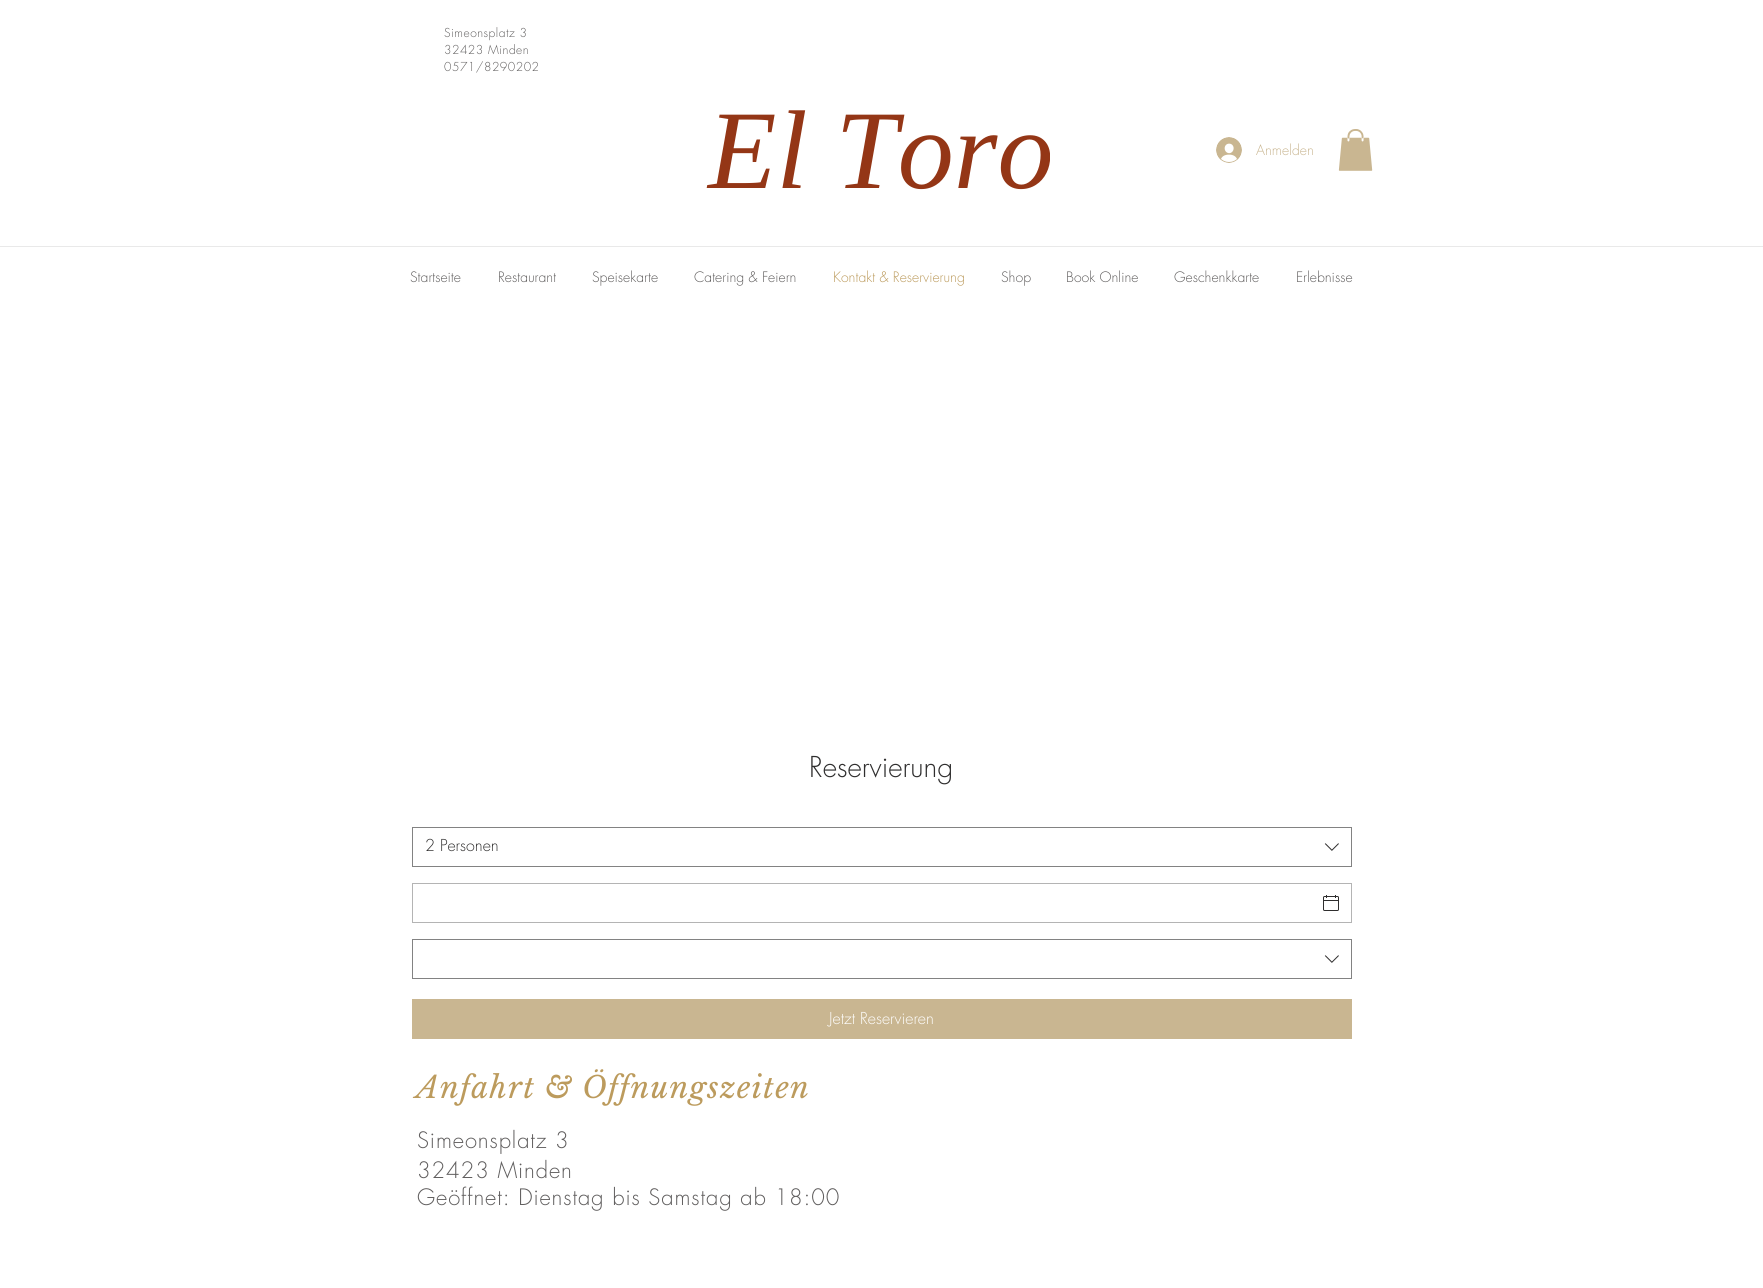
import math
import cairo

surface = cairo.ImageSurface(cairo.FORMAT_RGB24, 1763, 1288)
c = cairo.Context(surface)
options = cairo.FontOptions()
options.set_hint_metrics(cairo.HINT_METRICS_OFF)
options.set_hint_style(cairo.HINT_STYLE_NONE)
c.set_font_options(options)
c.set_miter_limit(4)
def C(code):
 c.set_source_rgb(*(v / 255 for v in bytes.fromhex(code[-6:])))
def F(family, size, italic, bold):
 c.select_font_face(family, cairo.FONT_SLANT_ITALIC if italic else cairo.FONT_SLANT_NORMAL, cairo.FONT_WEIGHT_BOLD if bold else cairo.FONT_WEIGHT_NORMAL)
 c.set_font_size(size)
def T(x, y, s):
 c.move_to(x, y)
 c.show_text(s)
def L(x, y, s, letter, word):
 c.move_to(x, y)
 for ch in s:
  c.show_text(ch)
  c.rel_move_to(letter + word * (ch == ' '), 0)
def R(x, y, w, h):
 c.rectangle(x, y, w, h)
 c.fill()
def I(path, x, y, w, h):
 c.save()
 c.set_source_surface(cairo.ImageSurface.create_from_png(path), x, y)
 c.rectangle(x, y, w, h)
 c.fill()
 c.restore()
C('ffffff')
c.paint()
F('futura Light',12,0,0)
C('605e5e')
L(444,37,'Simeonsplatz 3',.5,0)
L(444,54,'32423 Minden',.5,0)
L(444,71,'0571/8290202',.5,0)
F('Liberation Serif',112,1,0)
C('943616')
T(708,188,'El Toro')
I('1.png',1216,137,26,26)
F('futura Light',14,0,0)
C('c9b691')
T(1256,155,'Anmelden')
I('2.png',1338,129,35,42)
C('e9e9e9')
R(0,246,1763,1)
C('605e5e')
T(410,282,'Startseite')
T(498,282,'Restaurant')
T(592,282,'Speisekarte')
T(694,282,'Catering & Feiern')
C('bc9b5d')
T(833,282,'Kontakt & Reservierung')
C('605e5e')
T(1001,282,'Shop')
T(1066,282,'Book Online')
T(1174,282,'Geschenkkarte')
T(1296,282,'Erlebnisse')
F('futura Light',28,0,0)
C('2f2e2e')
T(809,777,'Reservierung')
c.rectangle(412.5,827.5,939,39)
C('828282')
c.set_line_width(1)
c.stroke()
F('futura Light',16,0,0)
C('2f2e2e')
T(425,851,'2 Personen')
I('3.png',1324,843,15,8)
c.rectangle(412.5,883.5,939,39)
C('b4b4b4')
c.stroke()
I('4.png',1323,895,16,16)
c.rectangle(412.5,939.5,939,39)
C('828282')
c.stroke()
I('3.png',1324,955,15,8)
C('c9b691')
R(412,999,940,40)
C('ffffff')
T(829,1024,'Jetzt Reservieren')
F('Libre Baskerville',30,1,0)
C('bc9b5d')
L(416,1098,'Anfahrt & Öffnungszeiten',1.2,0)
F('futura Light',22,0,0)
C('605e5e')
L(417,1148,'Simeonsplatz 3',.9,0)
L(417,1178,'32423 Minden',.9,0)
L(417,1205,'Geöffnet: Dienstag bis Samstag ab 18:00',.9,0)
surface.write_to_png('o.png')
